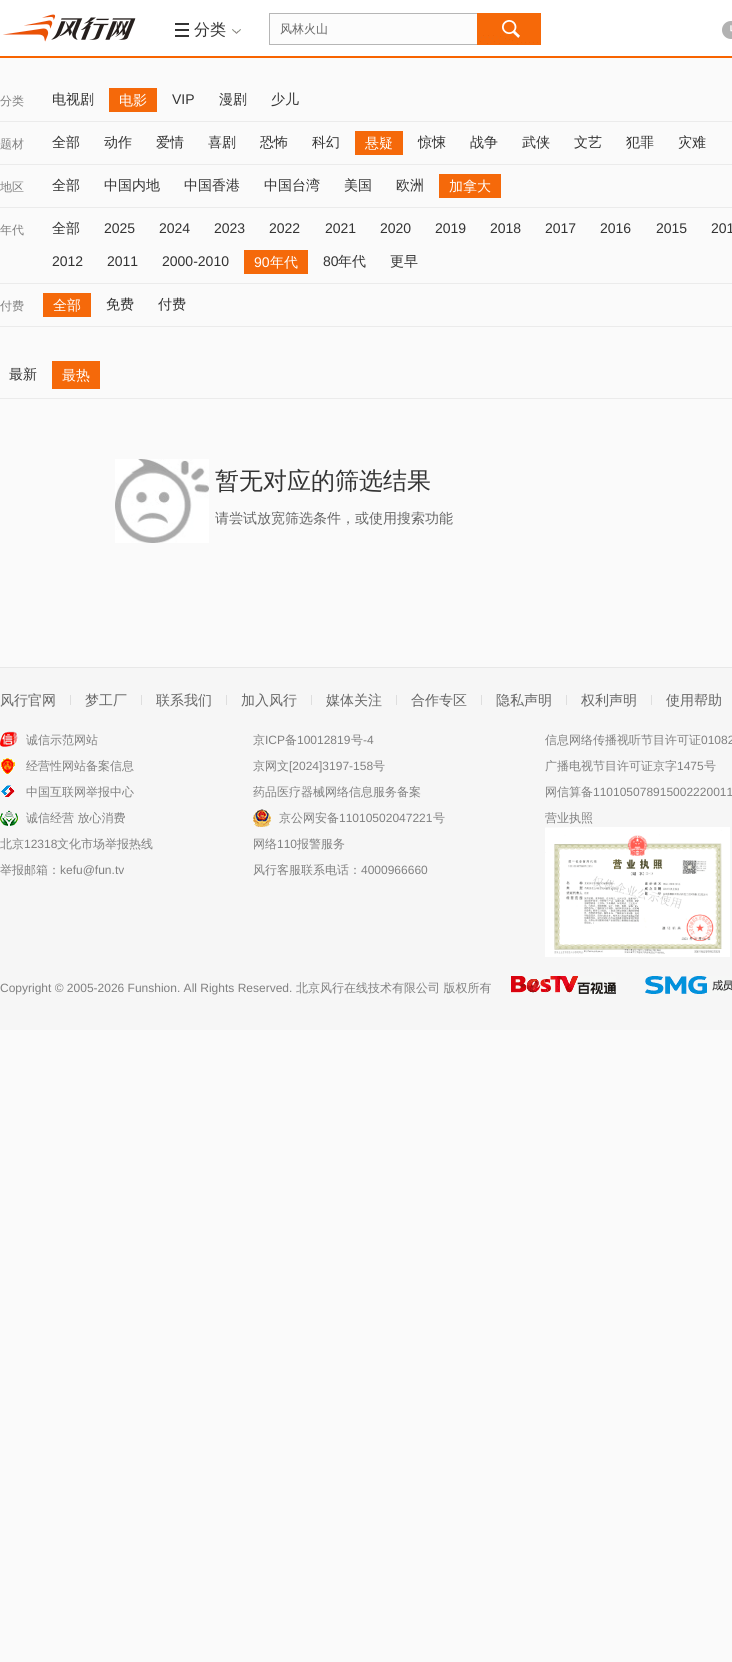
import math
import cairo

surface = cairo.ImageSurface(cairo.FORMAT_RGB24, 732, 1662)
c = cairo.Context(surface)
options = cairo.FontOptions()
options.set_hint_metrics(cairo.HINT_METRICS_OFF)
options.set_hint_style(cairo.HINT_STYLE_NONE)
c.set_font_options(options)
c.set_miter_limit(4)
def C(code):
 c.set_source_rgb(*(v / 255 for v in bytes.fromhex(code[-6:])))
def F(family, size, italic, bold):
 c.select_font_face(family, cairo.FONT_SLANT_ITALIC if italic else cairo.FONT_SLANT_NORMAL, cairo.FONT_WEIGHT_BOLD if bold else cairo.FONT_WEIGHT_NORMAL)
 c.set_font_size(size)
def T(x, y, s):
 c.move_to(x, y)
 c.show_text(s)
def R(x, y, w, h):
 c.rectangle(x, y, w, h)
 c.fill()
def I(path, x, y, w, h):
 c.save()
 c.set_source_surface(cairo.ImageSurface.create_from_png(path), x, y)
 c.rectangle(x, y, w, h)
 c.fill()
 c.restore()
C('fafafa')
c.paint()
C('ffffff')
R(0,0,732,56)
C('f86400')
R(0,56,732,2)
I('1.png',3,14,133,28)
I('2.png',175,23,14,14)
F('WenQuanYi Zen Hei Medium',16,0,0)
C('333333')
T(194,35,'分类')
I('3.png',232,29,9,5)
C('fcfcfc')
R(270,14,218,30)
C('b6b6b6')
R(269,13,208,1)
R(269,44,208,1)
R(269,13,1,32)
F('WenQuanYi Zen Hei Medium',12,0,0)
C('666666')
T(280,33,'风林火山')
I('4.png',477,13,64,32)
I('5.png',722,21,10,18)
C('ebebeb')
R(0,121,732,1)
C('808080')
T(0,105,'分类')
F('WenQuanYi Zen Hei Medium',14,0,0)
C('333333')
T(52,104,'电视剧')
C('f5690a')
R(109,88,48,24)
C('ffffff')
T(119,105,'电影')
F('Liberation Sans',14,0,0)
C('333333')
T(172,104,'VIP')
F('WenQuanYi Zen Hei Medium',14,0,0)
T(219,104,'漫剧')
T(271,104,'少儿')
C('ebebeb')
R(0,164,732,1)
F('WenQuanYi Zen Hei Medium',12,0,0)
C('808080')
T(0,148,'题材')
F('WenQuanYi Zen Hei Medium',14,0,0)
C('333333')
T(52,147,'全部')
T(104,147,'动作')
T(156,147,'爱情')
T(208,147,'喜剧')
T(260,147,'恐怖')
T(312,147,'科幻')
C('f5690a')
R(355,131,48,24)
C('ffffff')
T(365,148,'悬疑')
C('333333')
T(418,147,'惊悚')
T(470,147,'战争')
T(522,147,'武侠')
T(574,147,'文艺')
T(626,147,'犯罪')
T(678,147,'灾难')
C('ebebeb')
R(0,207,732,1)
F('WenQuanYi Zen Hei Medium',12,0,0)
C('808080')
T(0,191,'地区')
F('WenQuanYi Zen Hei Medium',14,0,0)
C('333333')
T(52,190,'全部')
T(104,190,'中国内地')
T(184,190,'中国香港')
T(264,190,'中国台湾')
T(344,190,'美国')
T(396,190,'欧洲')
C('f5690a')
R(439,174,62,24)
C('ffffff')
T(449,191,'加拿大')
C('ebebeb')
R(0,283,732,1)
F('WenQuanYi Zen Hei Medium',12,0,0)
C('808080')
T(0,234,'年代')
F('WenQuanYi Zen Hei Medium',14,0,0)
C('333333')
T(52,233,'全部')
F('Liberation Sans',14,0,0)
T(104,233,'2025')
T(159,233,'2024')
T(214,233,'2023')
T(269,233,'2022')
T(325,233,'2021')
T(380,233,'2020')
T(435,233,'2019')
T(490,233,'2018')
T(545,233,'2017')
T(600,233,'2016')
T(656,233,'2015')
T(711,233,'201')
T(52,266,'2012')
T(107,266,'2011')
T(162,266,'2000-2010')
C('f5690a')
R(244,250,64,24)
C('ffffff')
T(254,267,'90')
F('WenQuanYi Zen Hei Medium',14,0,0)
T(270,267,'年代')
F('Liberation Sans',14,0,0)
C('333333')
T(323,266,'80')
F('WenQuanYi Zen Hei Medium',14,0,0)
T(338,266,'年代')
T(390,266,'更早')
C('ebebeb')
R(0,326,732,1)
F('WenQuanYi Zen Hei Medium',12,0,0)
C('808080')
T(0,310,'付费')
C('f5690a')
R(43,293,48,24)
F('WenQuanYi Zen Hei Medium',14,0,0)
C('ffffff')
T(53,310,'全部')
C('333333')
T(106,309,'免费')
T(158,309,'付费')
C('ebebeb')
R(0,398,732,1)
C('333333')
T(9,379,'最新')
C('f5690a')
R(52,361,48,28)
C('ffffff')
T(62,380,'最热')
I('6.png',115,459,94,84)
F('WenQuanYi Zen Hei Medium',24,0,0)
C('333333')
T(215,489,'暂无对应的筛选结果')
F('WenQuanYi Zen Hei Medium',14,0,0)
C('666666')
T(215,523,'请尝试放宽筛选条件，或使用搜索功能')
C('f6f6f6')
R(0,668,732,362)
C('e8e8e8')
R(0,667,732,1)
C('666666')
T(0,705,'风行官网')
C('dedede')
R(70,695,1,10)
C('666666')
T(85,705,'梦工厂')
C('dedede')
R(141,695,1,10)
C('666666')
T(156,705,'联系我们')
C('dedede')
R(226,695,1,10)
C('666666')
T(241,705,'加入风行')
C('dedede')
R(311,695,1,10)
C('666666')
T(326,705,'媒体关注')
C('dedede')
R(396,695,1,10)
C('666666')
T(411,705,'合作专区')
C('dedede')
R(481,695,1,10)
C('666666')
T(496,705,'隐私声明')
C('dedede')
R(566,695,1,10)
C('666666')
T(581,705,'权利声明')
C('dedede')
R(651,695,1,10)
C('666666')
T(666,705,'使用帮助')
I('7.png',0,731,18,16)
F('WenQuanYi Zen Hei Medium',12,0,0)
C('808080')
T(26,744,'诚信示范网站')
I('8.png',1,758,14,16)
T(26,770,'经营性网站备案信息')
I('9.png',1,785,14,12)
T(26,796,'中国互联网举报中心')
I('10.png',0,810,18,16)
T(26,822,'诚信经营 放心消费')
T(0,848,'北京')
F('Liberation Sans',12,0,0)
T(24,848,'12318')
F('WenQuanYi Zen Hei Medium',12,0,0)
T(57,848,'文化市场举报热线')
T(0,874,'举报邮箱：')
F('Liberation Sans',12,0,0)
T(60,874,'kefu@fun.tv')
F('WenQuanYi Zen Hei Medium',12,0,0)
T(253,744,'京')
F('Liberation Sans',12,0,0)
T(265,744,'ICP')
F('WenQuanYi Zen Hei Medium',12,0,0)
T(285,744,'备')
F('Liberation Sans',12,0,0)
T(297,744,'10012819')
F('WenQuanYi Zen Hei Medium',12,0,0)
T(351,744,'号')
F('Liberation Sans',12,0,0)
T(363,744,'-4')
F('WenQuanYi Zen Hei Medium',12,0,0)
T(253,770,'京网文')
F('Liberation Sans',12,0,0)
T(289,770,'[2024]3197-158')
F('WenQuanYi Zen Hei Medium',12,0,0)
T(373,770,'号')
T(253,796,'药品医疗器械网络信息服务备案')
I('11.png',253,809,18,18)
T(279,822,'京公网安备')
F('Liberation Sans',12,0,0)
T(339,822,'11010502047221')
F('WenQuanYi Zen Hei Medium',12,0,0)
T(433,822,'号')
T(253,848,'网络')
F('Liberation Sans',12,0,0)
T(277,848,'110')
F('WenQuanYi Zen Hei Medium',12,0,0)
T(297,848,'报警服务')
T(253,874,'风行客服联系电话：')
F('Liberation Sans',12,0,0)
T(361,874,'4000966660')
F('WenQuanYi Zen Hei Medium',12,0,0)
T(545,744,'信息网络传播视听节目许可证')
F('Liberation Sans',12,0,0)
T(701,744,'01082')
F('WenQuanYi Zen Hei Medium',12,0,0)
T(545,770,'广播电视节目许可证京字')
F('Liberation Sans',12,0,0)
T(677,770,'1475')
F('WenQuanYi Zen Hei Medium',12,0,0)
T(704,770,'号')
T(545,796,'网信算备')
F('Liberation Sans',12,0,0)
T(593,796,'110105078915002220011')
F('WenQuanYi Zen Hei Medium',12,0,0)
T(545,822,'营业执照')
I('12.png',545,827,185,130)
F('Liberation Sans',12,0,0)
T(0,992,'Copyright © 2005-2026 Funshion. All Rights Reserved.')
F('WenQuanYi Zen Hei Medium',12,0,0)
T(296,992,'北京风行在线技术有限公司 版权所有')
I('13.png',511,976,105,18)
I('14.png',645,976,87,18)
surface.write_to_png('o.png')
